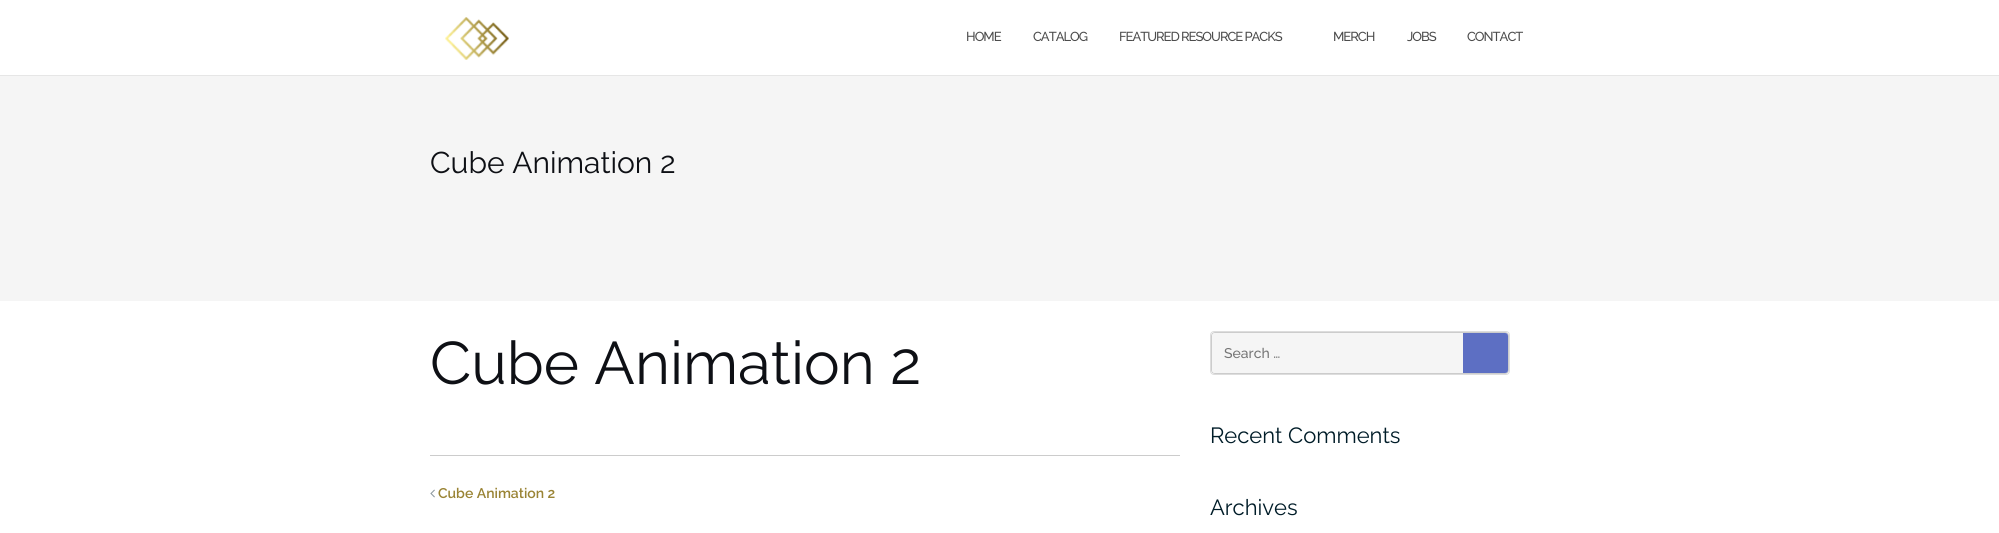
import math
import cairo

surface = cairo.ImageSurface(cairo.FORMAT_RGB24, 1999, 533)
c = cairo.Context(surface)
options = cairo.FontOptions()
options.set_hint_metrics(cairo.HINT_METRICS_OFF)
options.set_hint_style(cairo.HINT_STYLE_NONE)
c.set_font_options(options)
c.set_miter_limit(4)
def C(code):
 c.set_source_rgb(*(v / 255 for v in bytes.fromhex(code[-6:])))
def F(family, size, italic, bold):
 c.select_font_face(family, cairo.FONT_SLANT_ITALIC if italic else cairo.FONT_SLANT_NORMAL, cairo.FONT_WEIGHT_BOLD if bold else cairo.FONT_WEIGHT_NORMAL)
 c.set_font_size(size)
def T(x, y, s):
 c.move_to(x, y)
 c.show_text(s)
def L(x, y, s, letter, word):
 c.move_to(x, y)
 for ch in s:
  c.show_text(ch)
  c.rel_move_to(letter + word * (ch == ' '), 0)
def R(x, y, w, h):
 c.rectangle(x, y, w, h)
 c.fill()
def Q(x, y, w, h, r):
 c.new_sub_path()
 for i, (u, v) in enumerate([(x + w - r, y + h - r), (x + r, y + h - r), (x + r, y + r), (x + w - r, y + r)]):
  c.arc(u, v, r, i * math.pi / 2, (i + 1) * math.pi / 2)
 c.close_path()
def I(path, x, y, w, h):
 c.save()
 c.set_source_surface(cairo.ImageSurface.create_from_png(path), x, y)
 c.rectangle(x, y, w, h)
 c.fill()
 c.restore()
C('ffffff')
c.paint()
C('e6e6e6')
R(0,75,1999,1)
I('1.png',445,17,64,43)
F('Raleway Medium',13,0,0)
C('4c4c4c')
L(966,41,'HOME',-1,0)
L(1033,41,'CATALOG',-1,0)
L(1119,41,'FEATURED RESOURCE PACKS',-1,0)
L(1333,41,'MERCH',-1,0)
L(1407,41,'JOBS',-1,0)
L(1467,41,'CONTACT',-1,0)
C('f5f5f5')
R(0,76,1999,225)
F('Raleway',30,0,0)
C('0e1015')
T(430,173,'Cube Animation 2')
F('Raleway',60,0,0)
T(430,384,'Cube Animation 2')
C('cccccc')
R(430,455,750,1)
I('2.png',430,489,5,9)
F('Raleway SemiBold',14,0,0)
C('9a8435')
T(438,498,'Cube Animation 2')
Q(1210.5,331.5,299,43,3.5)
C('dddddd')
c.set_line_width(1)
c.stroke()
Q(1211.5,332.5,297,41,3.5)
C('cccccc')
c.stroke()
C('f5f5f5')
c.new_path()
c.move_to(1215,333)
c.line_to(1463,333)
c.line_to(1463,373)
c.line_to(1215,373)
c.curve_to(1213.5,373,1212,371.5,1212,370)
c.line_to(1212,336)
c.curve_to(1212,334.5,1213.5,333,1215,333)
c.close_path()
c.fill()
F('Raleway Medium',14,0,0)
C('757575')
T(1224,358,'Search …')
C('5d6fc3')
c.new_path()
c.move_to(1463,333)
c.line_to(1463,373)
c.line_to(1505,373)
c.curve_to(1507,373,1508,372,1508,370)
c.line_to(1508,336)
c.curve_to(1508,334,1507,333,1505,333)
c.close_path()
c.fill()
F('Raleway',22,0,0)
C('001c28')
T(1210,443,'Recent Comments')
T(1210,515,'Archives')
surface.write_to_png('o.png')
